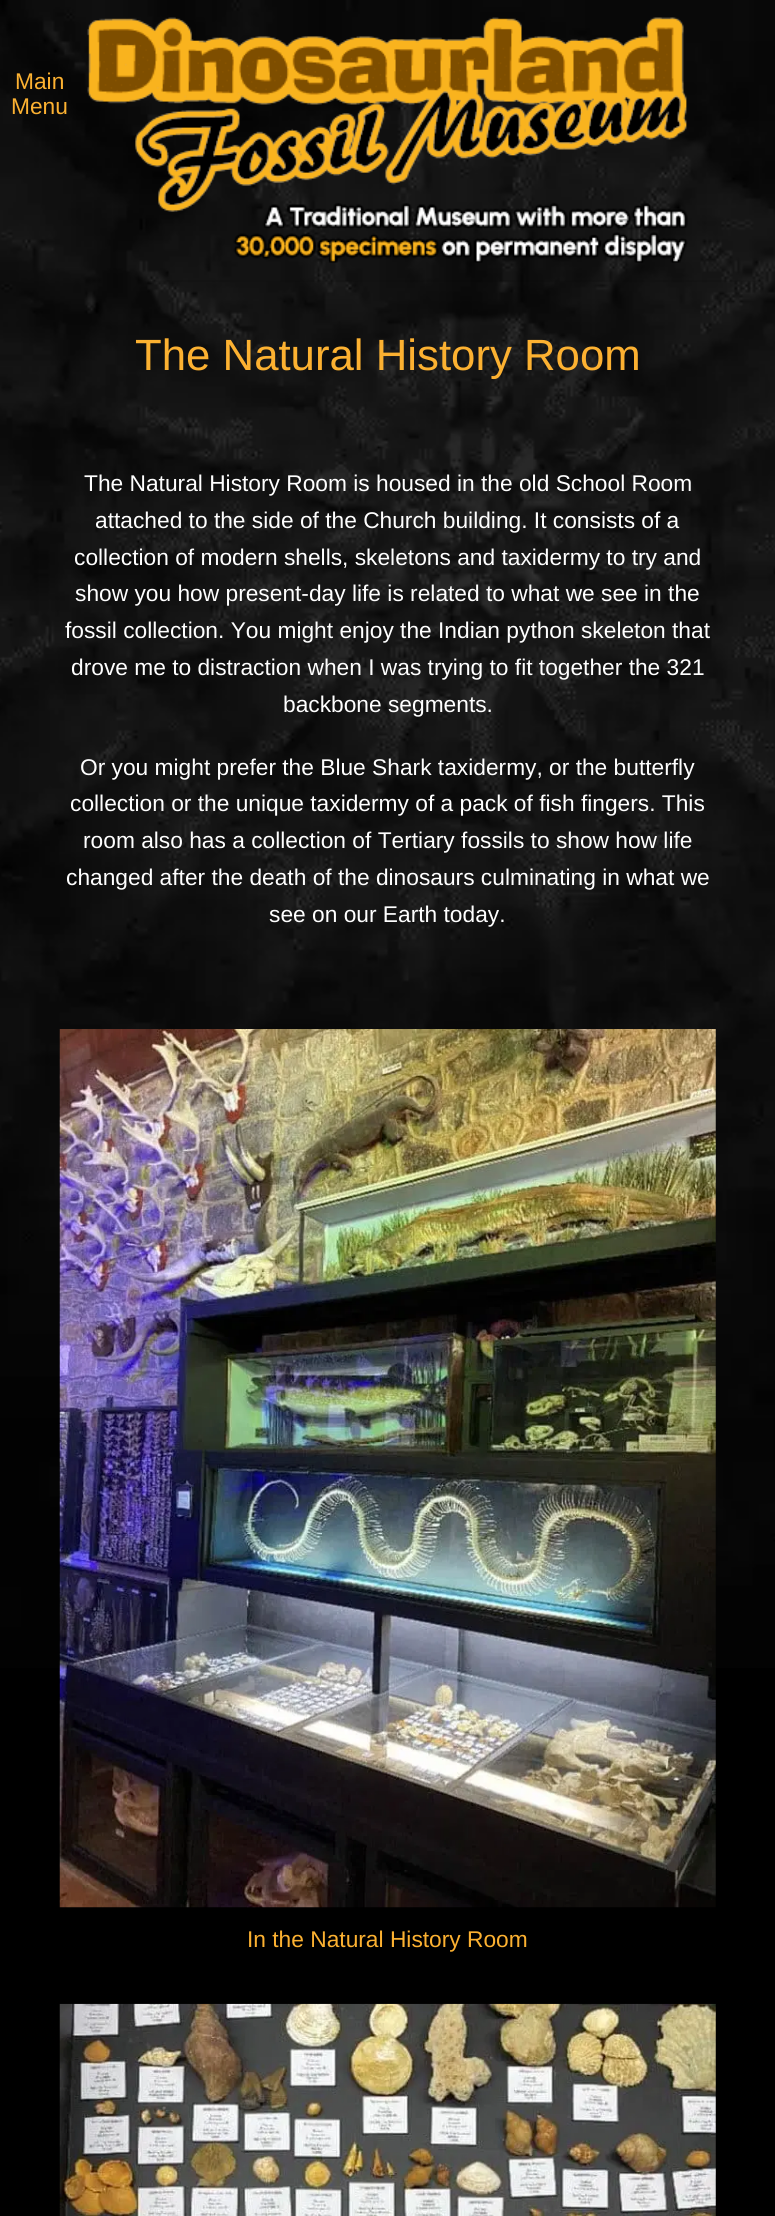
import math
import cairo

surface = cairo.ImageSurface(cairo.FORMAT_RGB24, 775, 2216)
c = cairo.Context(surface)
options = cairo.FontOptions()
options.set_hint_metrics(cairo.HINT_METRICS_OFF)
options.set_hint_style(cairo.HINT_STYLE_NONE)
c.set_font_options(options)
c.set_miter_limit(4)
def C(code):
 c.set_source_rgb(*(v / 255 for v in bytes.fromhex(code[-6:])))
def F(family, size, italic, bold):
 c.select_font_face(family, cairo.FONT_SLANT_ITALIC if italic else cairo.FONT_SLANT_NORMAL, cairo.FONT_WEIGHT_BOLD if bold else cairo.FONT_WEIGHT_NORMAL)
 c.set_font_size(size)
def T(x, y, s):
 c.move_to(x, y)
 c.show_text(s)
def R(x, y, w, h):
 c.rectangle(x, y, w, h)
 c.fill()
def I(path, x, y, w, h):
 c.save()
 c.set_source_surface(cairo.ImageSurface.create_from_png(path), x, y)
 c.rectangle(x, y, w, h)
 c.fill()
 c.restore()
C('000000')
c.paint()
I('1.png',0,0,775,1668)
F('Liberation Sans',22.75,0,0)
C('fcb131')
T(15,89,'Main')
T(11,114,'Menu')
c.set_source_rgba(0,0,0,0.08)
R(150,280,613,2)
I('2.png',87,17,601,246)
F('Liberation Sans',43.75,0,0)
C('fcb131')
T(135,370,'The Natural History Room')
F('Liberation Sans',22.75,0,0)
C('ffffff')
T(84,491,'The Natural History Room is housed in the old School Room')
T(95,528,'attached to the side of the Church building. It consists of a')
T(74,565,'collection of modern shells, skeletons and taxidermy to try and')
T(75,601,'show you how present-day life is related to what we see in the')
T(65,638,'fossil collection. You might enjoy the Indian python skeleton that')
T(71,675,'drove me to distraction when I was trying to fit together the 321')
T(283,712,'backbone segments.')
T(80,775,'Or you might prefer the Blue Shark taxidermy, or the butterfly')
T(70,811,'collection or the unique taxidermy of a pack of fish fingers. This')
T(83,848,'room also has a collection of Tertiary fossils to show how life')
T(66,885,'changed after the death of the dinosaurs culminating in what we')
T(269,922,'see on our Earth today.')
I('3.png',59,1029,657,879)
C('fcb131')
T(247,1947,'In the Natural History Room')
I('4.png',59,2003,657,213)
surface.write_to_png('o.png')
